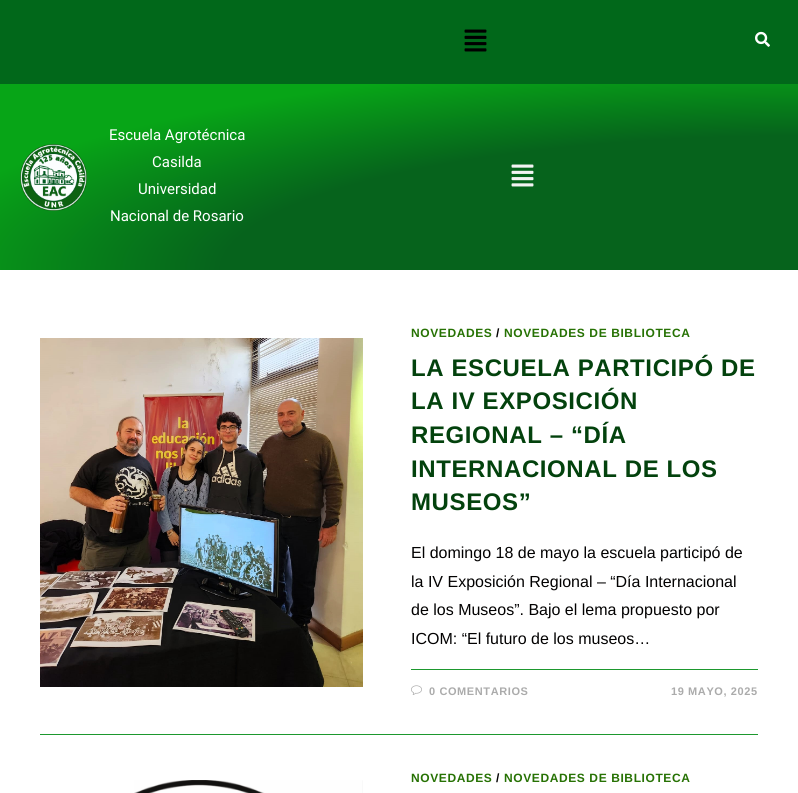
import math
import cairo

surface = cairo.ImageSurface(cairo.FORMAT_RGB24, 798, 793)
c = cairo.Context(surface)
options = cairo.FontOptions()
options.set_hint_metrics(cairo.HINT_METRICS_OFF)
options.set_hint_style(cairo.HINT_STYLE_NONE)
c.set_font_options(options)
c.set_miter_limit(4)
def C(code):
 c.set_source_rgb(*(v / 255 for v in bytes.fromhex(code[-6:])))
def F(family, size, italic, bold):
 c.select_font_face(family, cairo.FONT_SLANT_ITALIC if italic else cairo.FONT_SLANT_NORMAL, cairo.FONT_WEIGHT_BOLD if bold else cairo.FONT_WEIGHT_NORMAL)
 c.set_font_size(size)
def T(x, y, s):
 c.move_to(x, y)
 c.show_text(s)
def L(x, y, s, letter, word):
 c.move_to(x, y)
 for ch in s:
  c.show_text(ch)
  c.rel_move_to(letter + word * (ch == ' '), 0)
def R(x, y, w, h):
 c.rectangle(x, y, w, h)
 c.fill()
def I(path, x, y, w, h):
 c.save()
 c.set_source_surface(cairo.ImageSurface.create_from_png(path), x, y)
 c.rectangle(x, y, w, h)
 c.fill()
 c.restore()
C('ffffff')
c.paint()
C('01681a')
R(0,0,798,84)
I('1.png',464,29,23,23)
I('2.png',755,31,15,16)
gradient = cairo.RadialGradient(0,0,0,0,0,1)
gradient.set_matrix(cairo.Matrix(1 / 1129, 0, 0, 1 / 263, -1 * 798 / 1129, -1 * 270 / 263))
gradient.add_color_stop_rgba(.51,0.024,0.388,0.11,1)
gradient.add_color_stop_rgba(.8,0.027,0.647,0.09,1)
c.set_source(gradient)
R(0,84,798,186)
I('3.png',20,144,67,67)
F('Roboto',15,0,0)
C('ffffff')
T(109,140,'Escuela Agrotécnica')
T(152,167,'Casilda')
T(138,194,'Universidad')
T(110,221,'Nacional de Rosario')
I('4.png',511,164,23,23)
C('1d982e')
R(40,734,718,1)
I('5.png',40,338,323,349)
F('Liberation Sans',12,0,1)
C('277204')
L(411,337,'NOVEDADES',.6,0)
C('020101')
L(496,337,'/',.6,0)
C('277204')
L(504,337,'NOVEDADES DE BIBLIOTECA',.6,0)
F('Liberation Sans',24,0,1)
C('03420d')
L(411,376,'LA ESCUELA PARTICIPÓ DE',.6,0)
L(411,409,'LA IV EXPOSICIÓN',.6,0)
L(411,443,'REGIONAL – “DÍA',.6,0)
L(411,477,'INTERNACIONAL DE LOS',.6,0)
L(411,510,'MUSEOS”',.6,0)
F('Liberation Sans',16,0,0)
C('020101')
T(411,558,'El domingo 18 de mayo la escuela participó de')
T(411,587,'la IV Exposición Regional – “Día Internacional')
T(411,615,'de los Museos”. Bajo el lema propuesto por')
T(411,644,'ICOM: “El futuro de los museos…')
C('1d982e')
R(411,669,347,1)
I('6.png',411,685,11,10)
F('Liberation Sans',11,0,1)
C('ababab')
L(429,695,'0 COMENTARIOS',.6,0)
L(671,695,'19 MAYO, 2025',.6,0)
F('Liberation Sans',12,0,1)
C('277204')
L(411,782,'NOVEDADES',.6,0)
C('020101')
L(496,782,'/',.6,0)
C('277204')
L(504,782,'NOVEDADES DE BIBLIOTECA',.6,0)
I('7.png',134,780,229,13)
surface.write_to_png('o.png')
